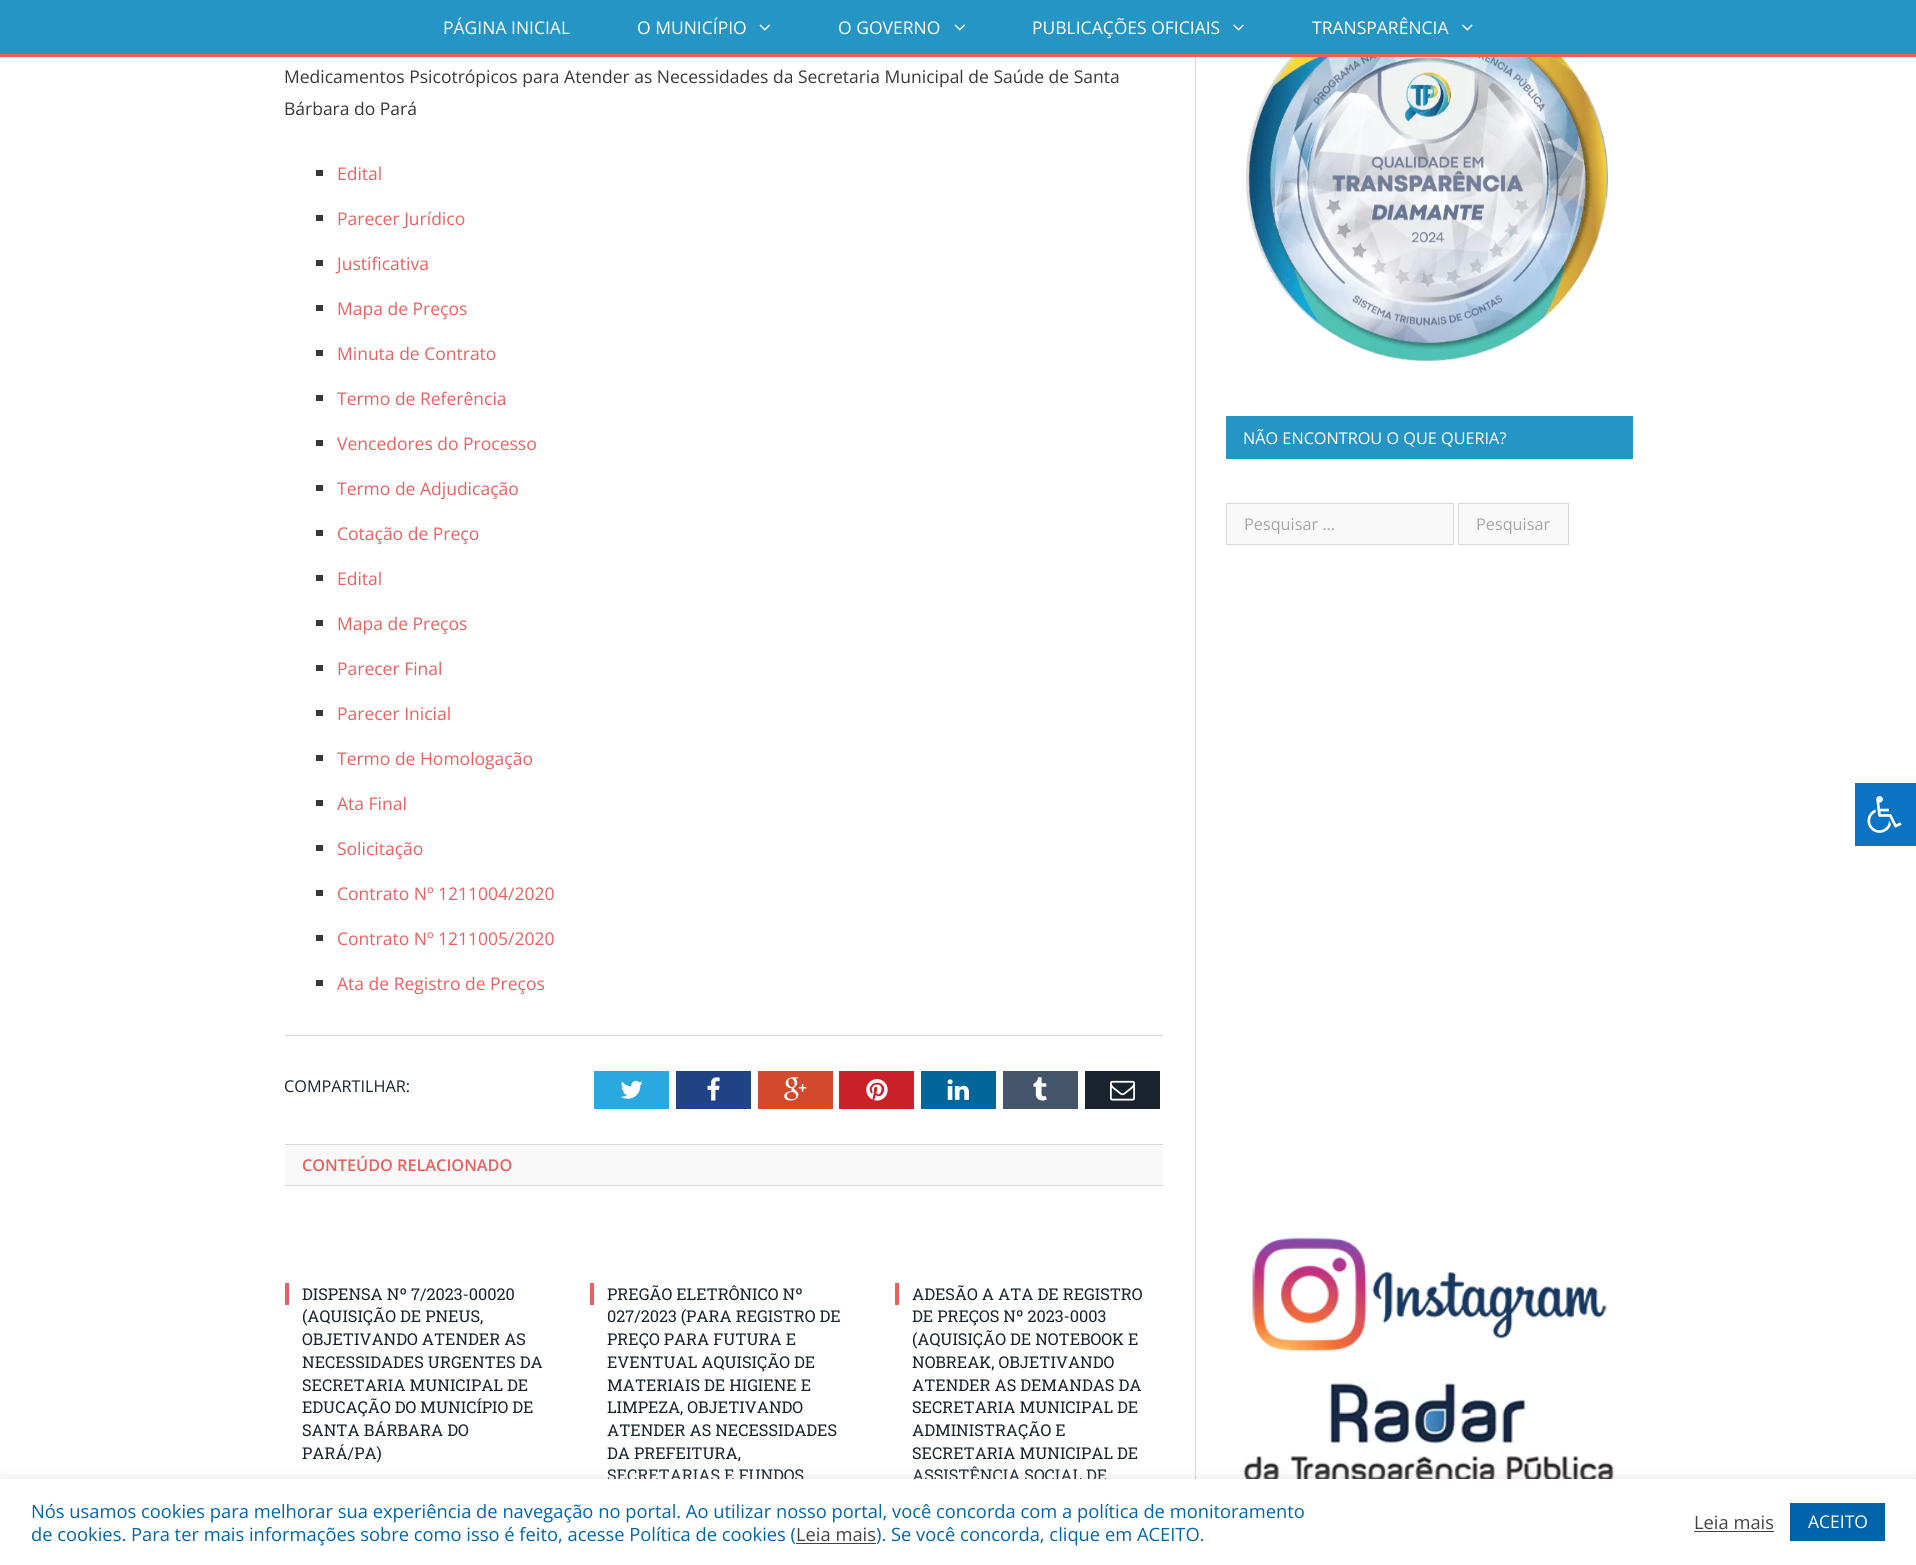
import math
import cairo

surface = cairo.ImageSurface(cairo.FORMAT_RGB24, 1916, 1565)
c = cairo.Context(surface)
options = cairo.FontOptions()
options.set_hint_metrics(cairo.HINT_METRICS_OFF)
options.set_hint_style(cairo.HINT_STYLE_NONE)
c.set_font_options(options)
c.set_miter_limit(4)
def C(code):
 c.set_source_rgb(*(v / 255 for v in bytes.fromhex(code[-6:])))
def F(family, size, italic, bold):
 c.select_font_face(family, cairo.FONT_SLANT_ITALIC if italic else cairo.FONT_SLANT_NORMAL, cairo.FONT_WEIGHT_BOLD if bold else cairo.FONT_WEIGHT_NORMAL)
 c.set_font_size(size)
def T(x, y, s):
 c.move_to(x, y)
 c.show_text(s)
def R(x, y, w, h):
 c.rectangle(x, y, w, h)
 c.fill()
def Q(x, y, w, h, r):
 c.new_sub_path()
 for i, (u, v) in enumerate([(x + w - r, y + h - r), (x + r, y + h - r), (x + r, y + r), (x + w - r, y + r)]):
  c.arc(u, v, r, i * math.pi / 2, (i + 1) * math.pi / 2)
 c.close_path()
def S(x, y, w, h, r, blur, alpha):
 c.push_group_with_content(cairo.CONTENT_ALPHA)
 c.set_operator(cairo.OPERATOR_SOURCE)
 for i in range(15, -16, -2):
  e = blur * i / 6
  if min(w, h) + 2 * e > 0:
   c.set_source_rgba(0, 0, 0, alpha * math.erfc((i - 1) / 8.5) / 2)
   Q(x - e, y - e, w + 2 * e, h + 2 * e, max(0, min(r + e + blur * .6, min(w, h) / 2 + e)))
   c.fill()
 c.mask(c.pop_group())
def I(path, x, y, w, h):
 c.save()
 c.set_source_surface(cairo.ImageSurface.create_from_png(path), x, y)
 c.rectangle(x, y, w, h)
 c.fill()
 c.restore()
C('ffffff')
c.paint()
C('2595c5')
R(0,0,1916,54)
C('ec5f60')
R(0,54,1916,3)
F('Open Sans',17.5,0,0)
C('ffffff')
T(443,34,'PÁGINA INICIAL')
T(637,34,'O MUNICÍPIO')
I('1.png',759,24,11,7)
T(838,34,'O GOVERNO')
I('1.png',954,24,11,7)
T(1032,34,'PUBLICAÇÕES OFICIAIS')
I('2.png',1233,24,11,7)
T(1312,34,'TRANSPARÊNCIA')
I('3.png',1462,24,11,7)
C('383838')
T(284,83,'Medicamentos Psicotrópicos para Atender as Necessidades da Secretaria Municipal de Saúde de Santa')
T(284,115,'Bárbara do Pará')
R(316,170,7,6)
C('ec5f60')
T(337,180,'Edital')
C('383838')
R(316,215,7,6)
C('ec5f60')
T(337,225,'Parecer Jurídico')
C('383838')
R(316,260,7,6)
C('ec5f60')
T(337,270,'Justificativa')
C('383838')
R(316,305,7,6)
C('ec5f60')
T(337,315,'Mapa de Preços')
C('383838')
R(316,350,7,6)
C('ec5f60')
T(337,360,'Minuta de Contrato')
C('383838')
R(316,395,7,6)
C('ec5f60')
T(337,405,'Termo de Referência')
C('383838')
R(316,440,7,6)
C('ec5f60')
T(337,450,'Vencedores do Processo')
C('383838')
R(316,485,7,6)
C('ec5f60')
T(337,495,'Termo de Adjudicação')
C('383838')
R(316,530,7,6)
C('ec5f60')
T(337,540,'Cotação de Preço')
C('383838')
R(316,575,7,6)
C('ec5f60')
T(337,585,'Edital')
C('383838')
R(316,620,7,6)
C('ec5f60')
T(337,630,'Mapa de Preços')
C('383838')
R(316,665,7,6)
C('ec5f60')
T(337,675,'Parecer Final')
C('383838')
R(316,710,7,6)
C('ec5f60')
T(337,720,'Parecer Inicial')
C('383838')
R(316,755,7,6)
C('ec5f60')
T(337,765,'Termo de Homologação')
C('383838')
R(316,800,7,6)
C('ec5f60')
T(337,810,'Ata Final')
C('383838')
R(316,845,7,6)
C('ec5f60')
T(337,855,'Solicitação')
C('383838')
R(316,890,7,6)
C('ec5f60')
T(337,900,'Contrato Nº 1211004/2020')
C('383838')
R(316,935,7,6)
C('ec5f60')
T(337,945,'Contrato Nº 1211005/2020')
C('383838')
R(316,980,7,6)
C('ec5f60')
T(337,990,'Ata de Registro de Preços')
C('d9d9d9')
R(285,1035,878,1)
F('Open Sans',16.25,0,0)
C('19232d')
T(284,1092,'COMPARTILHAR:')
C('2aa9e0')
R(594,1071,75,38)
I('4.png',620,1080,23,19)
C('204385')
R(676,1071,75,38)
I('5.png',707,1077,13,24)
C('d3492c')
R(758,1071,75,38)
I('6.png',784,1077,23,24)
C('ca2128')
R(839,1071,75,38)
I('7.png',866,1079,22,22)
C('02669a')
R(921,1071,75,38)
I('8.png',947,1079,22,21)
C('44546b')
R(1003,1071,75,38)
I('9.png',1033,1077,14,24)
C('19232d')
R(1085,1071,75,38)
I('10.png',1110,1080,25,21)
C('f9f9f9')
R(285,1145,878,40)
C('d9d9d9')
R(285,1144,878,1)
R(285,1185,878,1)
F('Open Sans SemiBold',16.25,0,0)
C('ec5f60')
T(302,1171,'CONTEÚDO RELACIONADO')
R(285,1283,4,22)
F('Roboto Slab',16.25,0,0)
C('19232d')
T(302,1300,'DISPENSA Nº 7/2023-00020')
T(302,1322,'(AQUISIÇÃO DE PNEUS,')
T(302,1345,'OBJETIVANDO ATENDER AS')
T(302,1368,'NECESSIDADES URGENTES DA')
T(302,1391,'SECRETARIA MUNICIPAL DE')
T(302,1413,'EDUCAÇÃO DO MUNICÍPIO DE')
T(302,1436,'SANTA BÁRBARA DO')
T(302,1459,'PARÁ/PA)')
C('ec5f60')
R(590,1283,4,22)
C('19232d')
T(607,1300,'PREGÃO ELETRÔNICO Nº')
T(607,1322,'027/2023 (PARA REGISTRO DE')
T(607,1345,'PREÇO PARA FUTURA E')
T(607,1368,'EVENTUAL AQUISIÇÃO DE')
T(607,1391,'MATERIAIS DE HIGIENE E')
T(607,1413,'LIMPEZA, OBJETIVANDO')
T(607,1436,'ATENDER AS NECESSIDADES')
T(607,1459,'DA PREFEITURA,')
T(607,1481,'SECRETARIAS E FUNDOS')
C('ec5f60')
R(895,1283,4,22)
C('19232d')
T(912,1300,'ADESÃO A ATA DE REGISTRO')
T(912,1322,'DE PREÇOS Nº 2023-0003')
T(912,1345,'(AQUISIÇÃO DE NOTEBOOK E')
T(912,1368,'NOBREAK, OBJETIVANDO')
T(912,1391,'ATENDER AS DEMANDAS DA')
T(912,1413,'SECRETARIA MUNICIPAL DE')
T(912,1436,'ADMINISTRAÇÃO E')
T(912,1459,'SECRETARIA MUNICIPAL DE')
T(912,1481,'ASSISTÊNCIA SOCIAL DE')
C('d9d9d9')
R(1195,57,1,1422)
I('11.png',1246,57,363,306)
C('2595c5')
R(1226,416,407,43)
F('Open Sans',16.25,0,0)
C('ffffff')
T(1243,444,'NÃO ENCONTROU O QUE QUERIA?')
C('f9f9f9')
c.rectangle(1226.5,503.5,227,41)
c.fill_preserve()
C('d9d9d9')
c.set_line_width(1)
c.stroke()
C('a6a6a6')
T(1244,530,'Pesquisar …')
C('f9f9f9')
c.rectangle(1458.5,503.5,110,41)
c.fill_preserve()
C('d9d9d9')
c.stroke()
C('a6a6a6')
T(1476,530,'Pesquisar')
I('12.png',1252,1237,355,115)
I('13.png',1242,1380,372,99)
C('0a73c4')
R(1855,783,61,63)
I('14.png',1867,796,35,37)
C('acabab')
S(0,1478,1916,86,0,6,.3)
C('ffffff')
R(0,1479,1916,86)
F('Open Sans',18.33,0,0)
C('0064ab')
T(31,1518,'Nós usamos cookies para melhorar sua experiência de navegação no portal. Ao utilizar nosso portal, você concorda com a política de monitoramento')
T(31,1541,'de cookies. Para ter mais informações sobre como isso é feito, acesse Política de cookies (')
C('444444')
T(796,1541,'Leia mais')
R(796,1543,80,1)
C('0064ab')
T(876,1541,'). Se você concorda, clique em ACEITO.')
C('444444')
T(1694,1529,'Leia mais')
R(1694,1531,80,1)
C('0064ab')
R(1790,1503,95,38)
F('Open Sans',17.5,0,0)
C('ffffff')
T(1808,1528,'ACEITO')
surface.write_to_png('o.png')
